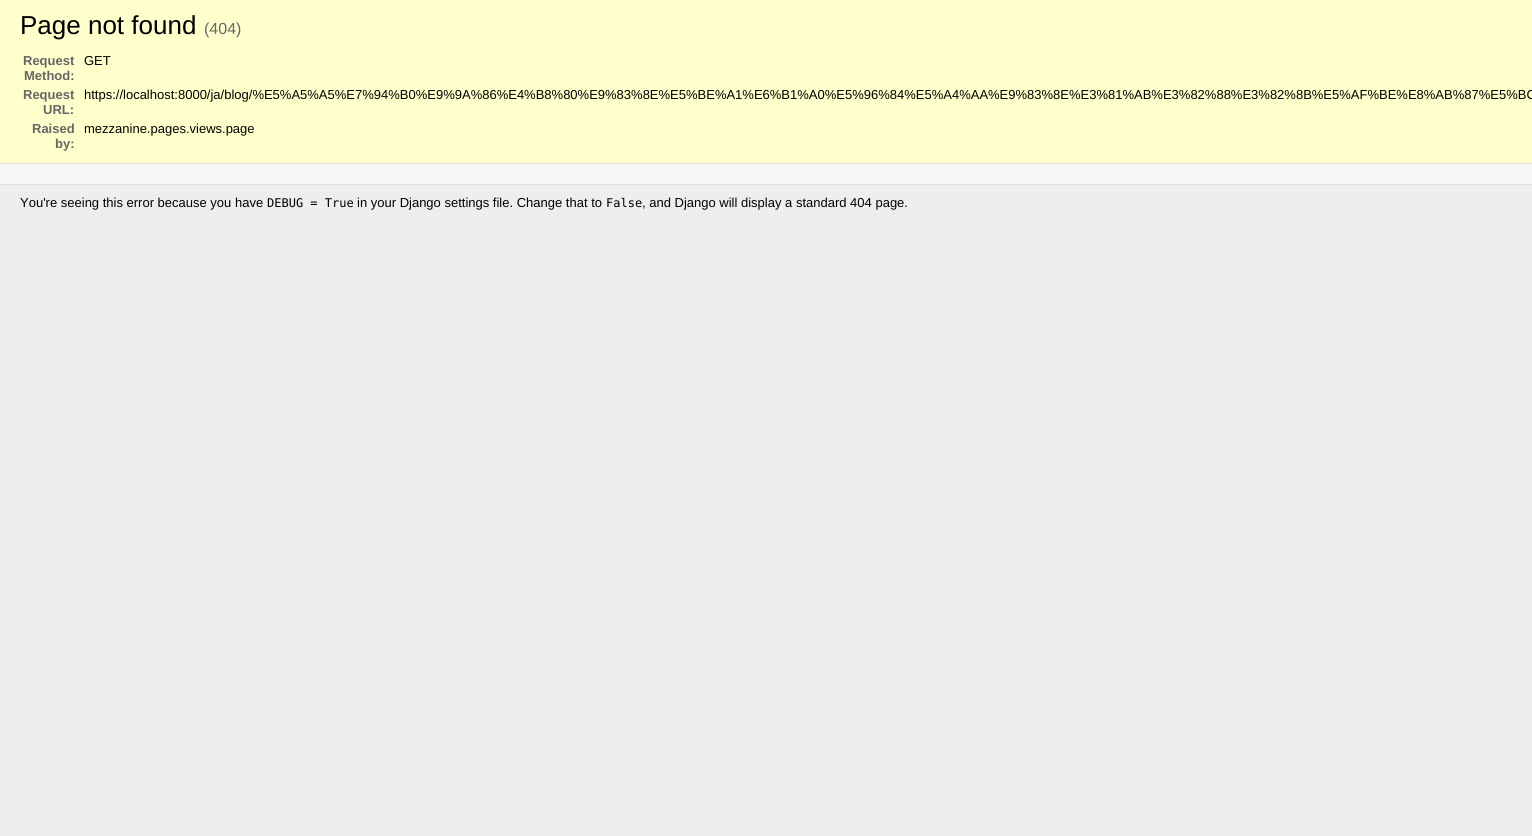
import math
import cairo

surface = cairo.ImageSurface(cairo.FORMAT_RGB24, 1532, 836)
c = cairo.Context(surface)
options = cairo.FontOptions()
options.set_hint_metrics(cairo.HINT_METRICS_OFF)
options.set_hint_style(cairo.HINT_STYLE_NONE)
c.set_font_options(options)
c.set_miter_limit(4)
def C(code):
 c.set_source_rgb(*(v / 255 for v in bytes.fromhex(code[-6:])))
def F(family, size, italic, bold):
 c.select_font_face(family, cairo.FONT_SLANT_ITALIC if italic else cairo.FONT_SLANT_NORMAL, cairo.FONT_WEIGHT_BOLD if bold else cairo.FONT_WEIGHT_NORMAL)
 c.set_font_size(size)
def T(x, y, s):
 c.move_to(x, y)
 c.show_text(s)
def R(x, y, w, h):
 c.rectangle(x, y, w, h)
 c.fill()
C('eeeeee')
c.paint()
C('ffffcc')
R(0,0,1532,163)
C('dddddd')
R(0,163,1532,1)
F('Liberation Sans',26,0,0)
C('000000')
T(20,34,'Page not found')
F('Liberation Sans',16,0,0)
C('666666')
T(204,34,'(404)')
F('Liberation Sans',13,0,1)
T(23,65,'Request')
T(24,80,'Method:')
F('Liberation Sans',13,0,0)
C('000000')
T(84,65,'GET')
F('Liberation Sans',13,0,1)
C('666666')
T(23,99,'Request')
T(43,114,'URL:')
F('Liberation Sans',13,0,0)
C('000000')
T(84,99,'https://localhost:8000/ja/blog/%E5%A5%A5%E7%94%B0%E9%9A%86%E4%B8%80%E9%83%8E%E5%BE%A1%E6%B1%A0%E5%96%84%E5%A4%AA%E9%83%8E%E3%81%AB%E3%82%88%E3%82%8B%E5%AF%BE%E8%AB%87%E5%BC')
F('Liberation Sans',13,0,1)
C('666666')
T(32,133,'Raised')
T(55,148,'by:')
F('Liberation Sans',13,0,0)
C('000000')
T(84,133,'mezzanine.pages.views.page')
C('f6f6f6')
R(0,164,1532,20)
C('dddddd')
R(0,184,1532,1)
C('000000')
T(20,207,'You\'re seeing this error because you have')
F('DejaVu Sans Mono',12,0,0)
T(267,207,'DEBUG = True')
F('Liberation Sans',13,0,0)
T(357,207,'in your Django settings file. Change that to')
F('DejaVu Sans Mono',12,0,0)
T(606,207,'False')
F('Liberation Sans',13,0,0)
T(642,207,', and Django will display a standard 404 page.')
surface.write_to_png('o.png')
